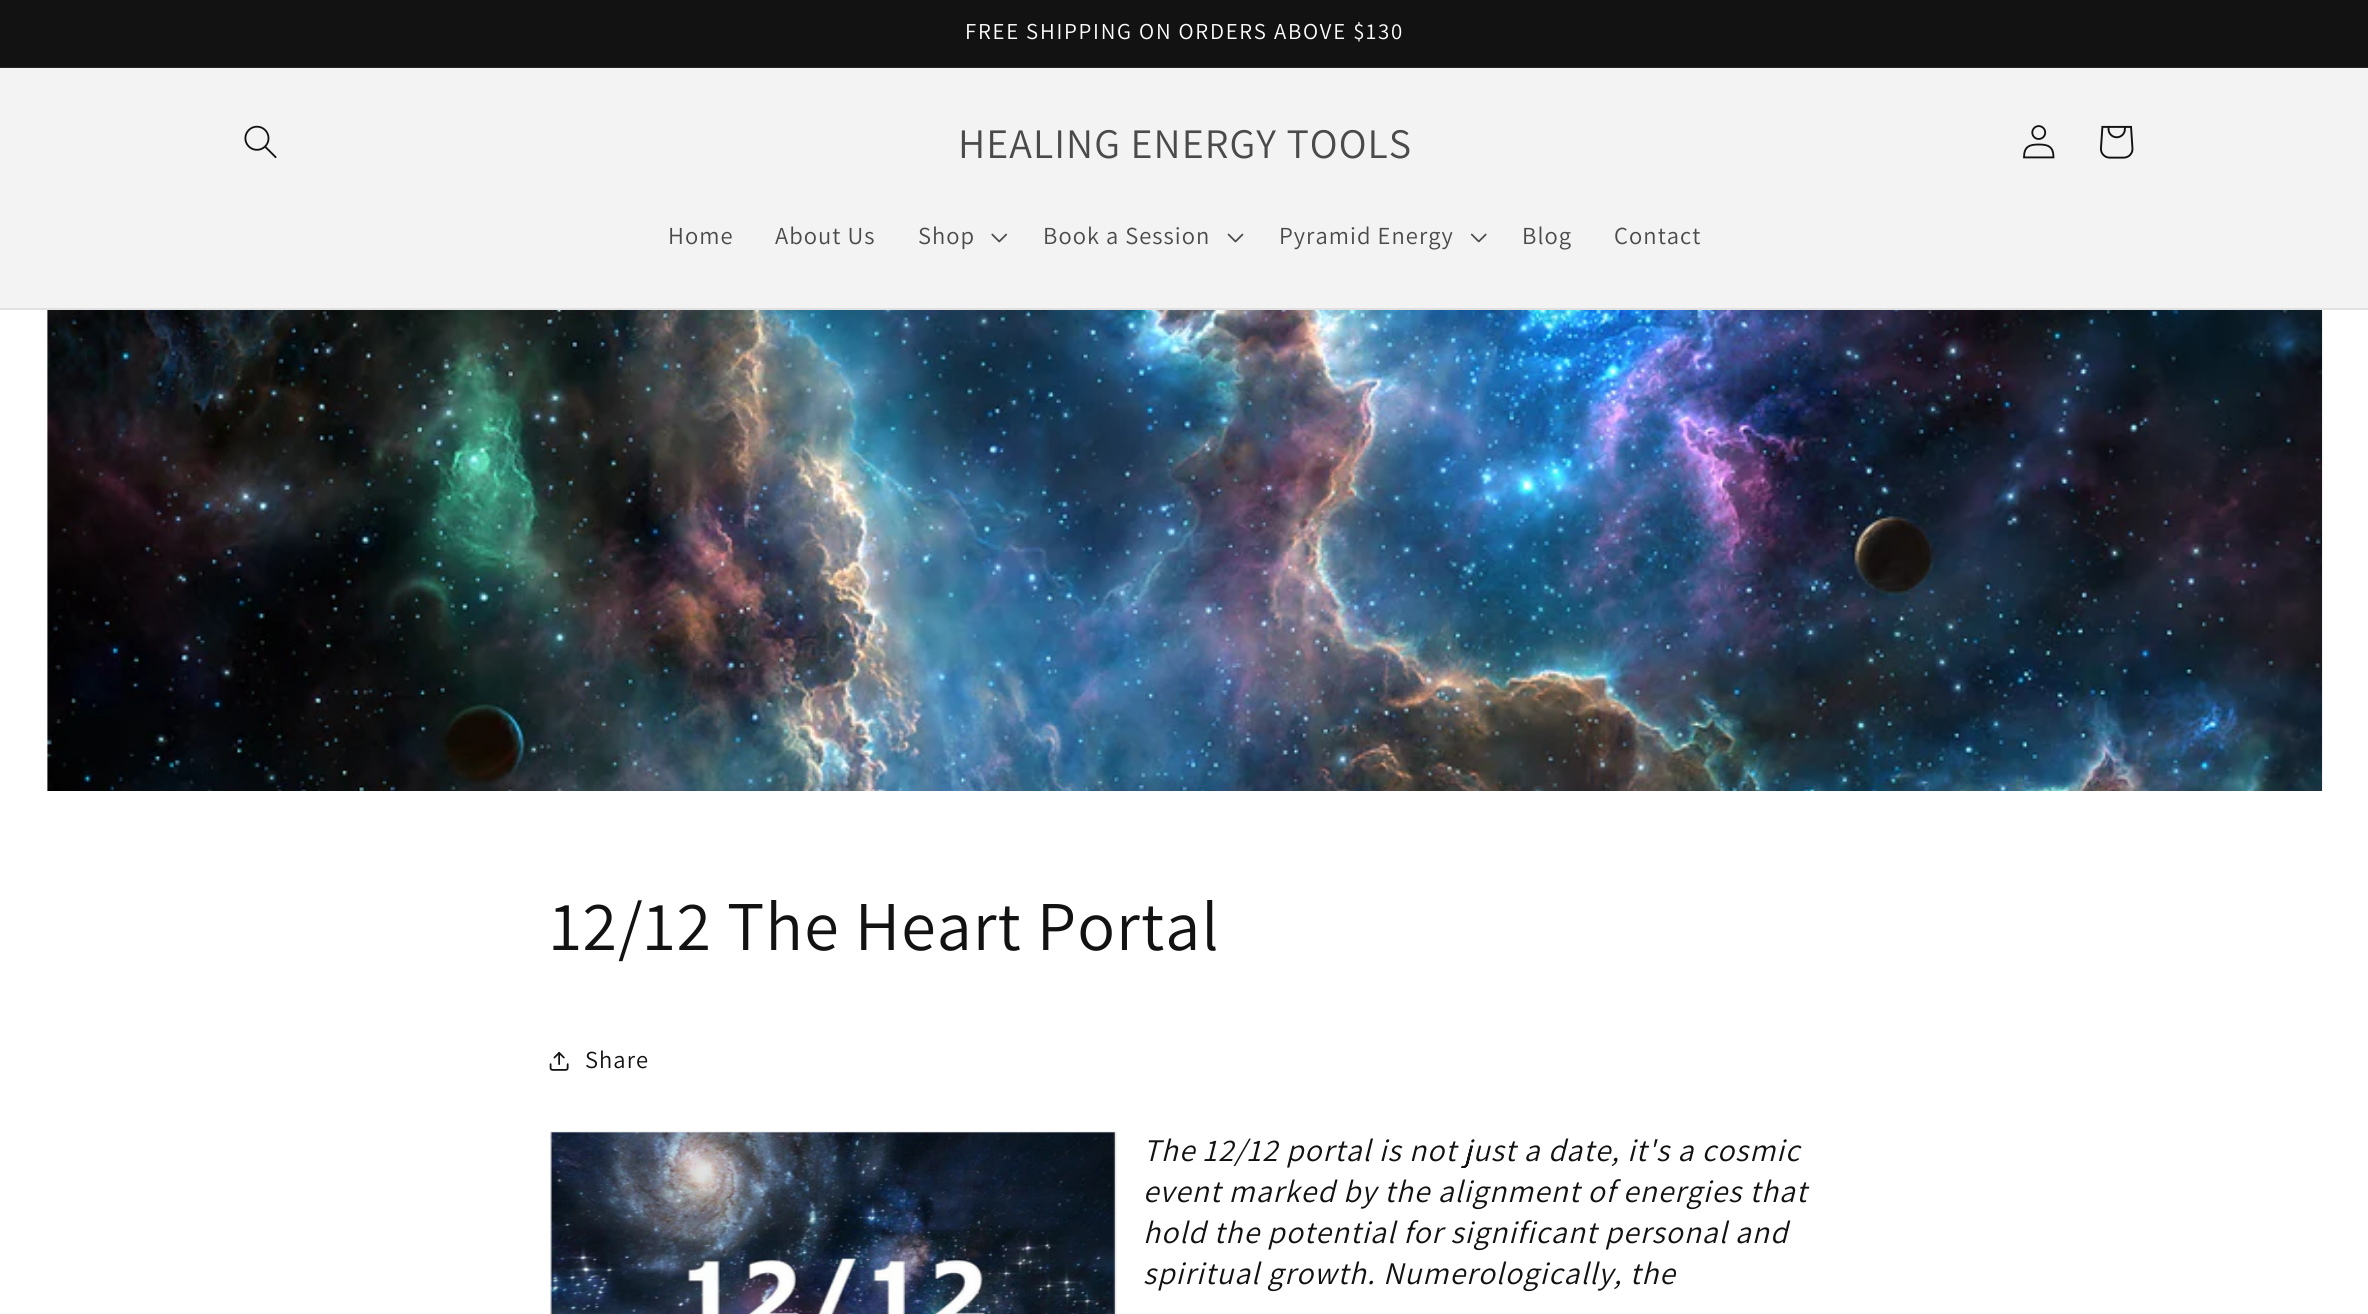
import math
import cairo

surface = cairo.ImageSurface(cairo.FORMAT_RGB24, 2368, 1314)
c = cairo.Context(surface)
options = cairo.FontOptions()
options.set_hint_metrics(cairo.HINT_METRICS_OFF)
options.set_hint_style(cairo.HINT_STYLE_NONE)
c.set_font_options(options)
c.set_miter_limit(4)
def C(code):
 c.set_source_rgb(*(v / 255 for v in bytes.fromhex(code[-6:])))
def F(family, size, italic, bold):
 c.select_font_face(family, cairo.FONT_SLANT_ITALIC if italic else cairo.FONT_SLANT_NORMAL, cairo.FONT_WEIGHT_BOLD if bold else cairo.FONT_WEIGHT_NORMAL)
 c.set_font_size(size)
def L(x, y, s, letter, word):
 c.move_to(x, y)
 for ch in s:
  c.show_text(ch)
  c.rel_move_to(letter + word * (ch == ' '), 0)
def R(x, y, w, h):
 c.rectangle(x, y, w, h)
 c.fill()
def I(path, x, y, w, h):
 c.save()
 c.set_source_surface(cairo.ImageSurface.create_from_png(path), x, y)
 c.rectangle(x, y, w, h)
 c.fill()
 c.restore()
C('ffffff')
c.paint()
C('121212')
R(0,0,2368,67)
C('252525')
R(0,67,2368,1)
F('Assistant',22.75,0,0)
C('ffffff')
L(965,39,'FREE SHIPPING ON ORDERS ABOVE $130',1.75,0)
C('f3f3f3')
R(0,69,2368,239)
C('f4f4f4')
R(0,68,2368,1)
C('e1e1e1')
R(0,308,2368,2)
I('1.png',244,125,33,34)
F('Assistant',42,0,0)
C('4a4a4a')
L(958,158,'HEALING ENERGY TOOLS',1.05,0)
I('2.png',2023,125,32,34)
I('3.png',2100,125,34,34)
F('Assistant',24.5,0,0)
L(668,244,'Home',1.05,0)
L(775,244,'About Us',1.05,0)
L(918,244,'Shop',1.05,0)
I('4.png',991,233,17,10)
L(1043,244,'Book a Session',1.05,0)
I('5.png',1227,233,17,10)
L(1279,244,'Pyramid Energy',1.05,0)
I('6.png',1470,233,17,10)
L(1522,244,'Blog',1.05,0)
L(1614,244,'Contact',1.05,0)
C('e8e8e8')
R(47,310,1,481)
I('7.png',47,310,2276,481)
F('Assistant',70,0,0)
C('121212')
L(550,950,'12/12 The Heart Portal',1.05,0)
I('8.png',549,1052,20,19)
F('Assistant',24.5,0,0)
L(585,1068,'Share',1.05,0)
c.rectangle(551,1132,565,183)
C('f3f3f3')
c.stroke()
I('9.png',550,1132,566,182)
F('Assistant',31.5,1,0)
C('121212')
L(1143,1161,'The 12/12 portal is not just a date, it\'s a cosmic',1.05,0)
L(1143,1202,'event marked by the alignment of energies that',1.05,0)
L(1143,1243,'hold the potential for significant personal and',1.05,0)
L(1143,1284,'spiritual growth. Numerologically, the',1.05,0)
surface.write_to_png('o.png')
